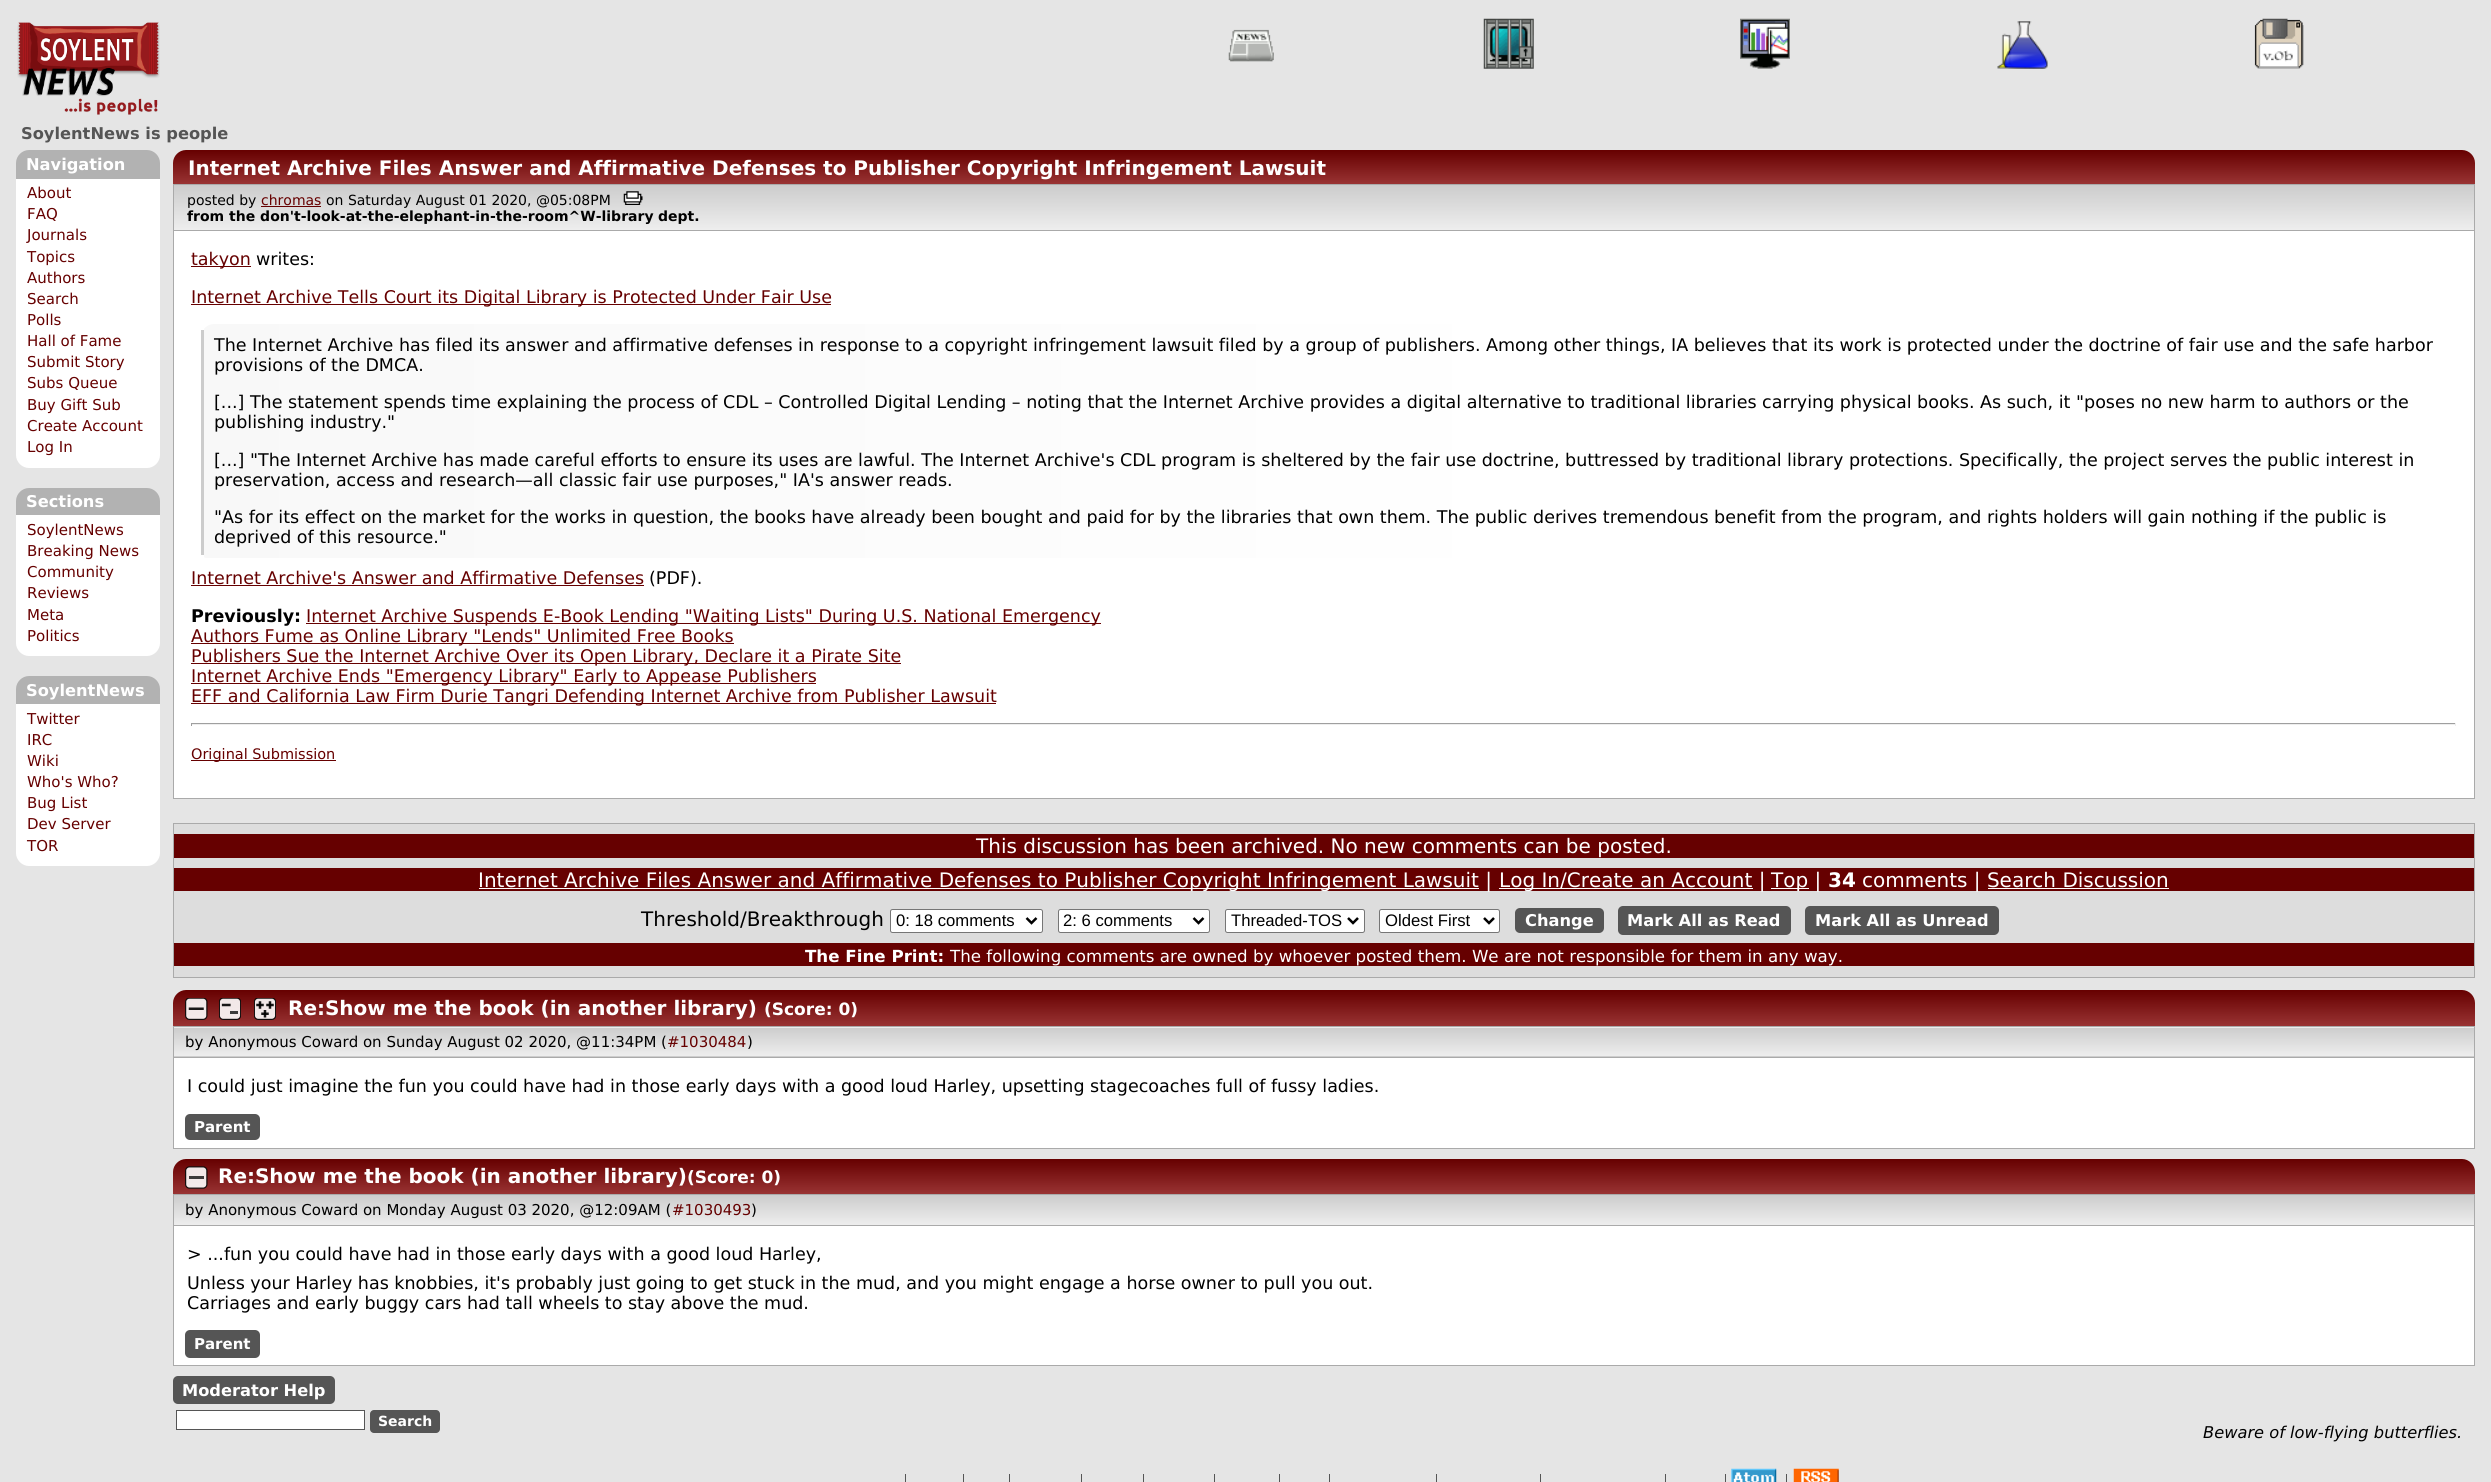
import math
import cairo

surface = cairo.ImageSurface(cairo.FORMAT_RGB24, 2491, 1482)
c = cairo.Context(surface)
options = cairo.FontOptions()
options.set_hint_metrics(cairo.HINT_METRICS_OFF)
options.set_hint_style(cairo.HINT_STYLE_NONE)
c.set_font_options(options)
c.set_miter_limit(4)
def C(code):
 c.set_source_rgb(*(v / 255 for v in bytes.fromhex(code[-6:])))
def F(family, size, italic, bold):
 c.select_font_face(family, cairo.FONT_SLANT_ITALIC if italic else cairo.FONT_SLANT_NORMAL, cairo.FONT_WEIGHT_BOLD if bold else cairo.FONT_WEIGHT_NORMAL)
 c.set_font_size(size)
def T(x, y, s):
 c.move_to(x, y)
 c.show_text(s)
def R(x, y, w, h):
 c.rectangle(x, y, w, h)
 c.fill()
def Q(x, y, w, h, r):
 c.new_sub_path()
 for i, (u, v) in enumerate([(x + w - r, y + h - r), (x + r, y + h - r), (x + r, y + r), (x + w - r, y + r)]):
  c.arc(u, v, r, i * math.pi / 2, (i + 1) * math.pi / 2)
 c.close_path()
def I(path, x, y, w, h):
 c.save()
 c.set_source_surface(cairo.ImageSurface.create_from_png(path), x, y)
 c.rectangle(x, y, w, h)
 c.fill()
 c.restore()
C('e5e5e5')
c.paint()
I('1.png',17,22,143,93)
I('2.png',1228,29,46,33)
I('3.png',1483,18,51,51)
I('4.png',1740,18,50,51)
I('5.png',1997,21,51,48)
I('6.png',2254,18,50,51)
F('DejaVu Sans',16.25,0,1)
C('555555')
T(21,139,'SoylentNews is people')
C('b2b2b2')
c.new_path()
c.move_to(29,150)
c.line_to(147,150)
c.curve_to(154,150,160,156,160,163)
c.line_to(160,179)
c.line_to(16,179)
c.line_to(16,163)
c.curve_to(16,156,22,150,29,150)
c.close_path()
c.fill()
C('ffffff')
T(26,170,'Navigation')
c.new_path()
c.move_to(16,179)
c.line_to(160,179)
c.line_to(160,455)
c.curve_to(160,462,154,468,147,468)
c.line_to(29,468)
c.curve_to(22,468,16,462,16,455)
c.close_path()
c.fill()
F('DejaVu Sans',15,0,0)
C('660000')
T(27,198,'About')
T(27,219,'FAQ')
T(27,240,'Journals')
T(27,262,'Topics')
T(27,283,'Authors')
T(27,304,'Search')
T(27,325,'Polls')
T(27,346,'Hall of Fame')
T(27,367,'Submit Story')
T(27,388,'Subs Queue')
T(27,410,'Buy Gift Sub')
T(27,431,'Create Account')
T(27,452,'Log In')
C('b2b2b2')
c.new_path()
c.move_to(29,488)
c.line_to(147,488)
c.curve_to(154,488,160,494,160,501)
c.line_to(160,515)
c.line_to(16,515)
c.line_to(16,501)
c.curve_to(16,494,22,488,29,488)
c.close_path()
c.fill()
F('DejaVu Sans',16.25,0,1)
C('ffffff')
T(26,507,'Sections')
c.new_path()
c.move_to(16,515)
c.line_to(160,515)
c.line_to(160,643)
c.curve_to(160,650,154,656,147,656)
c.line_to(29,656)
c.curve_to(22,656,16,650,16,643)
c.close_path()
c.fill()
F('DejaVu Sans',15,0,0)
C('660000')
T(27,535,'SoylentNews')
T(27,556,'Breaking News')
T(27,577,'Community')
T(27,598,'Reviews')
T(27,620,'Meta')
T(27,641,'Politics')
C('b2b2b2')
c.new_path()
c.move_to(29,676)
c.line_to(147,676)
c.curve_to(154,676,160,682,160,689)
c.line_to(160,704)
c.line_to(16,704)
c.line_to(16,689)
c.curve_to(16,682,22,676,29,676)
c.close_path()
c.fill()
F('DejaVu Sans',16.25,0,1)
C('ffffff')
T(26,696,'SoylentNews')
c.new_path()
c.move_to(16,704)
c.line_to(160,704)
c.line_to(160,853)
c.curve_to(160,860,154,866,147,866)
c.line_to(29,866)
c.curve_to(22,866,16,860,16,853)
c.close_path()
c.fill()
F('DejaVu Sans',15,0,0)
C('660000')
T(27,724,'Twitter')
T(27,745,'IRC')
T(27,766,'Wiki')
T(27,787,'Who\'s Who?')
T(27,808,'Bug List')
T(27,829,'Dev Server')
T(27,851,'TOR')
gradient = cairo.LinearGradient(1324,150,1324,184)
gradient.add_color_stop_rgba(0,0.4,0,0,1)
gradient.add_color_stop_rgba(1,0.6,0.2,0.2,1)
c.set_source(gradient)
c.new_path()
c.move_to(186,150)
c.line_to(2462,150)
c.curve_to(2469,150,2475,156,2475,163)
c.line_to(2475,184)
c.line_to(173,184)
c.line_to(173,163)
c.curve_to(173,156,179,150,186,150)
c.close_path()
c.fill()
F('DejaVu Sans',20,0,1)
C('ffffff')
T(188,175,'Internet Archive Files Answer and Affirmative Defenses to Publisher Copyright Infringement Lawsuit')
gradient = cairo.LinearGradient(1324,185,1324,230)
gradient.add_color_stop_rgba(0,0.8,0.8,0.8,1)
gradient.add_color_stop_rgba(1,0.933,0.933,0.933,1)
c.set_source(gradient)
R(174,185,2300,45)
c.rectangle(173.5,184.5,2301,46)
C('aaaaaa')
c.set_line_width(1)
c.stroke()
F('DejaVu Sans',14,0,0)
C('000000')
T(187,205,'posted by')
C('660000')
T(261,205,'chromas')
R(261,206,60,1)
C('000000')
T(326,205,'on Saturday August 01 2020, @05:08PM')
I('7.png',623,191,20,14)
F('DejaVu Sans',14,0,1)
T(187,221,'from the don\'t-look-at-the-elephant-in-the-room^W-library')
T(658,221,'dept.')
C('ffffff')
R(174,231,2300,567)
C('aaaaaa')
R(2474,231,1,568)
R(173,798,2302,1)
R(173,231,1,568)
C('660000')
R(191,266,60,1)
F('DejaVu Sans',17.5,0,0)
T(191,265,'takyon')
C('000000')
T(256,265,'writes:')
C('660000')
R(191,304,640,1)
T(191,303,'Internet Archive Tells Court its Digital Library is Protected Under Fair Use')
c.save()
c.new_path()
c.move_to(214,324)
c.line_to(2446,324)
c.line_to(2446,558)
c.line_to(207,558)
c.curve_to(203.5,558,201,555.5,201,552)
c.line_to(201,337)
c.curve_to(201,330,207,324,214,324)
c.close_path()
c.clip()
gradient = cairo.LinearGradient(204,441,2446,441)
gradient.add_color_stop_rgba(0,0.973,0.973,0.973,1)
gradient.add_color_stop_rgba(.6,1,1,1,1)
c.set_source(gradient)
R(204,324,2242,234)
c.restore()
C('cccccc')
R(201,330,3,225)
C('000000')
T(214,351,'The Internet Archive has filed its answer and affirmative defenses in response to a copyright infringement lawsuit filed by a group of publishers. Among other things, IA believes that its work is protected under the doctrine of fair use and the safe harbor')
T(214,371,'provisions of the DMCA.')
T(214,408,'[...] The statement spends time explaining the process of CDL – Controlled Digital Lending – noting that the Internet Archive provides a digital alternative to traditional libraries carrying physical books. As such, it "poses no new harm to authors or the')
T(214,428,'publishing industry."')
T(214,466,'[...] "The Internet Archive has made careful efforts to ensure its uses are lawful. The Internet Archive\'s CDL program is sheltered by the fair use doctrine, buttressed by traditional library protections. Specifically, the project serves the public interest in')
T(214,486,'preservation, access and research—all classic fair use purposes," IA\'s answer reads.')
T(214,523,'"As for its effect on the market for the works in question, the books have already been bought and paid for by the libraries that own them. The public derives tremendous benefit from the program, and rights holders will gain nothing if the public is')
T(214,543,'deprived of this resource."')
C('660000')
T(191,584,'Internet Archive\'s Answer and Affirmative Defenses')
R(191,585,453,1)
C('000000')
T(649,584,'(PDF).')
F('DejaVu Sans',17.5,0,1)
T(191,622,'Previously:')
C('660000')
R(306,623,795,1)
F('DejaVu Sans',17.5,0,0)
T(306,622,'Internet Archive Suspends E-Book Lending "Waiting Lists" During U.S. National Emergency')
R(191,643,543,1)
T(191,642,'Authors Fume as Online Library "Lends" Unlimited Free Books')
R(191,663,710,1)
T(191,662,'Publishers Sue the Internet Archive Over its Open Library, Declare it a Pirate Site')
R(191,683,625,1)
T(191,682,'Internet Archive Ends "Emergency Library" Early to Appease Publishers')
R(191,703,805,1)
T(191,702,'EFF and California Law Firm Durie Tangri Defending Internet Archive from Publisher Lawsuit')
C('9f9f9f')
R(191,723,2265,1)
C('eeeeee')
R(2455,723,1,3)
R(191,724,2265,1)
C('9f9f9f')
R(191,723,1,3)
C('660000')
R(191,760,145,1)
F('DejaVu Sans',14.5,0,0)
T(191,759,'Original Submission')
C('dddddd')
c.rectangle(173.5,823.5,2301,154)
c.fill_preserve()
C('aaaaaa')
c.stroke()
C('660000')
R(174,834,2300,24)
F('DejaVu Sans',20,0,0)
C('ffffff')
T(976,853,'This discussion has been archived. No new comments can be posted.')
C('660000')
R(174,868,2300,23)
C('ffffff')
R(479,888,1000,1)
T(478,887,'Internet Archive Files Answer and Affirmative Defenses to Publisher Copyright Infringement Lawsuit |')
R(1499,888,254,1)
T(1499,887,'Log In/Create an Account |')
R(1771,888,38,1)
T(1771,887,'Top |')
F('DejaVu Sans',20,0,1)
T(1828,887,'34')
F('DejaVu Sans',20,0,0)
T(1862,887,'comments | Search Discussion')
R(1988,888,181,1)
C('000000')
T(641,926,'Threshold/Breakthrough')
C('ffffff')
Q(890.5,909.5,152,23,2)
c.fill_preserve()
C('767676')
c.stroke()
c.new_path()
c.move_to(1026.5,918)
c.line_to(1031.5,923)
c.line_to(1036.5,918)
C('000000')
c.set_line_width(2.5)
c.stroke()
F('Liberation Sans',16.67,0,0)
T(896,926,'0: 18 comments')
C('ffffff')
Q(1058.5,909.5,151,23,2)
c.fill_preserve()
C('767676')
c.set_line_width(1)
c.stroke()
c.new_path()
c.move_to(1193.5,918)
c.line_to(1198.5,923)
c.line_to(1203.5,918)
C('000000')
c.set_line_width(2.5)
c.stroke()
T(1063,926,'2: 6 comments')
C('ffffff')
Q(1225.5,909.5,139,23,2)
c.fill_preserve()
C('767676')
c.set_line_width(1)
c.stroke()
c.new_path()
c.move_to(1348,918)
c.line_to(1353,923)
c.line_to(1358,918)
C('000000')
c.set_line_width(2.5)
c.stroke()
T(1231,926,'Threaded-TOS')
C('ffffff')
Q(1379.5,909.5,120,23,2)
c.fill_preserve()
C('767676')
c.set_line_width(1)
c.stroke()
c.new_path()
c.move_to(1484,918)
c.line_to(1489,923)
c.line_to(1494,918)
C('000000')
c.set_line_width(2.5)
c.stroke()
T(1385,926,'Oldest First')
C('555555')
Q(1515,908,89,25,5)
c.fill()
F('DejaVu Sans',16.25,0,1)
C('ffffff')
T(1525,926,'Change')
C('555555')
Q(1618,906,173,29,5)
c.fill()
C('ffffff')
T(1627,926,'Mark All as Read')
C('555555')
Q(1805,906,194,29,5)
c.fill()
C('ffffff')
T(1815,926,'Mark All as Unread')
C('660000')
R(174,943,2300,23)
F('DejaVu Sans',16.67,0,1)
C('ffffff')
T(805,962,'The Fine Print:')
F('DejaVu Sans',16.67,0,0)
T(950,962,'The following comments are owned by whoever posted them. We are not responsible for them in any way.')
gradient = cairo.LinearGradient(1324,990,1324,1026)
gradient.add_color_stop_rgba(0,0.4,0,0,1)
gradient.add_color_stop_rgba(1,0.6,0.2,0.2,1)
c.set_source(gradient)
c.new_path()
c.move_to(186,990)
c.line_to(2462,990)
c.curve_to(2469,990,2475,996,2475,1003)
c.line_to(2475,1026)
c.line_to(173,1026)
c.line_to(173,1003)
c.curve_to(173,996,179,990,186,990)
c.close_path()
c.fill()
I('8.png',185,998,23,22)
I('9.png',219,998,22,22)
I('10.png',254,998,22,22)
F('DejaVu Sans',20,0,1)
C('ffffff')
T(288,1015,'Re:Show me the book (in another library)')
F('DejaVu Sans',17,0,1)
T(764,1015,'(Score: 0)')
gradient = cairo.LinearGradient(1324,999,1324,1028)
gradient.add_color_stop_rgba(0,0.8,0.8,0.8,1)
gradient.add_color_stop_rgba(1,0.933,0.933,0.933,1)
c.set_source(gradient)
R(173,1027,2302,1)
gradient = cairo.LinearGradient(1324,1027,1324,1056)
gradient.add_color_stop_rgba(0,0.8,0.8,0.8,1)
gradient.add_color_stop_rgba(1,0.933,0.933,0.933,1)
c.set_source(gradient)
R(174,1028,2300,28)
gradient = cairo.LinearGradient(1324,1056,1324,1085)
gradient.add_color_stop_rgba(0,0.8,0.8,0.8,1)
gradient.add_color_stop_rgba(1,0.933,0.933,0.933,1)
c.set_source(gradient)
R(173,1056,2302,1)
c.rectangle(173.5,1026.5,2301,31)
C('aaaaaa')
c.set_line_width(1)
c.stroke()
F('DejaVu Sans',15,0,0)
C('000000')
T(185,1047,'by Anonymous Coward on Sunday August 02 2020, @11:34PM (')
C('660000')
T(667,1047,'#1030484')
C('000000')
T(747,1047,')')
C('ffffff')
R(174,1058,2300,90)
C('aaaaaa')
R(2474,1058,1,91)
R(173,1058,1,48)
F('DejaVu Sans',17.5,0,0)
C('000000')
T(187,1092,'I could just imagine the fun you could have had in those early days with a good loud Harley, upsetting stagecoaches full of fussy ladies.')
C('aaaaaa')
R(173,1148,2302,1)
R(173,1106,1,43)
C('555555')
Q(185,1114,75,26,5)
c.fill()
F('DejaVu Sans',15,0,1)
C('ffffff')
T(194,1132,'Parent')
gradient = cairo.LinearGradient(1324,1159,1324,1194)
gradient.add_color_stop_rgba(0,0.4,0,0,1)
gradient.add_color_stop_rgba(1,0.6,0.2,0.2,1)
c.set_source(gradient)
c.new_path()
c.move_to(186,1159)
c.line_to(2462,1159)
c.curve_to(2469,1159,2475,1165,2475,1172)
c.line_to(2475,1194)
c.line_to(173,1194)
c.line_to(173,1172)
c.curve_to(173,1165,179,1159,186,1159)
c.close_path()
c.fill()
I('11.png',185,1166,23,23)
F('DejaVu Sans',20,0,1)
C('ffffff')
T(218,1183,'Re:Show me the book (in another library)')
F('DejaVu Sans',17,0,1)
T(687,1183,'(Score: 0)')
gradient = cairo.LinearGradient(1324,1195,1324,1225)
gradient.add_color_stop_rgba(0,0.8,0.8,0.8,1)
gradient.add_color_stop_rgba(1,0.933,0.933,0.933,1)
c.set_source(gradient)
R(174,1195,2300,30)
c.rectangle(173.5,1194.5,2301,31)
C('aaaaaa')
c.stroke()
F('DejaVu Sans',15,0,0)
C('000000')
T(185,1215,'by Anonymous Coward on Monday August 03 2020, @12:09AM (')
C('660000')
T(672,1215,'#1030493')
C('000000')
T(751,1215,')')
C('ffffff')
R(174,1226,2300,139)
C('aaaaaa')
R(2474,1226,1,140)
R(173,1226,1,97)
F('DejaVu Sans',17.5,0,0)
C('000000')
T(187,1260,'> ...fun you could have had in those early days with a good loud Harley,')
T(187,1289,'Unless your Harley has knobbies, it\'s probably just going to get stuck in the mud, and you might engage a horse owner to pull you out.')
T(187,1309,'Carriages and early buggy cars had tall wheels to stay above the mud.')
C('aaaaaa')
R(173,1365,2302,1)
R(173,1323,1,43)
C('555555')
Q(185,1330,75,28,5)
c.fill()
F('DejaVu Sans',15,0,1)
C('ffffff')
T(194,1349,'Parent')
C('555555')
Q(173,1376,162,28,5)
c.fill()
F('DejaVu Sans',16.25,0,1)
C('ffffff')
T(182,1396,'Moderator Help')
c.rectangle(176.5,1410.5,188,19)
c.fill_preserve()
C('555555')
c.stroke()
Q(370,1410,70,23,4)
c.fill()
F('DejaVu Sans',14,0,1)
C('ffffff')
T(378,1426,'Search')
F('DejaVu Sans',16.25,1,0)
C('000000')
T(2203,1438,'Beware of low-flying butterflies.')
C('555555')
R(905,1474,1,8)
R(963,1474,1,8)
R(1009,1474,1,8)
R(1081,1474,1,8)
R(1143,1474,1,8)
R(1214,1474,1,8)
R(1279,1474,1,8)
R(1329,1474,1,8)
R(1436,1474,1,8)
R(1540,1474,1,8)
R(1665,1474,1,8)
R(1725,1474,1,8)
I('12.png',1731,1468,46,14)
R(1786,1474,1,8)
I('13.png',1793,1468,46,14)
surface.write_to_png('o.png')
